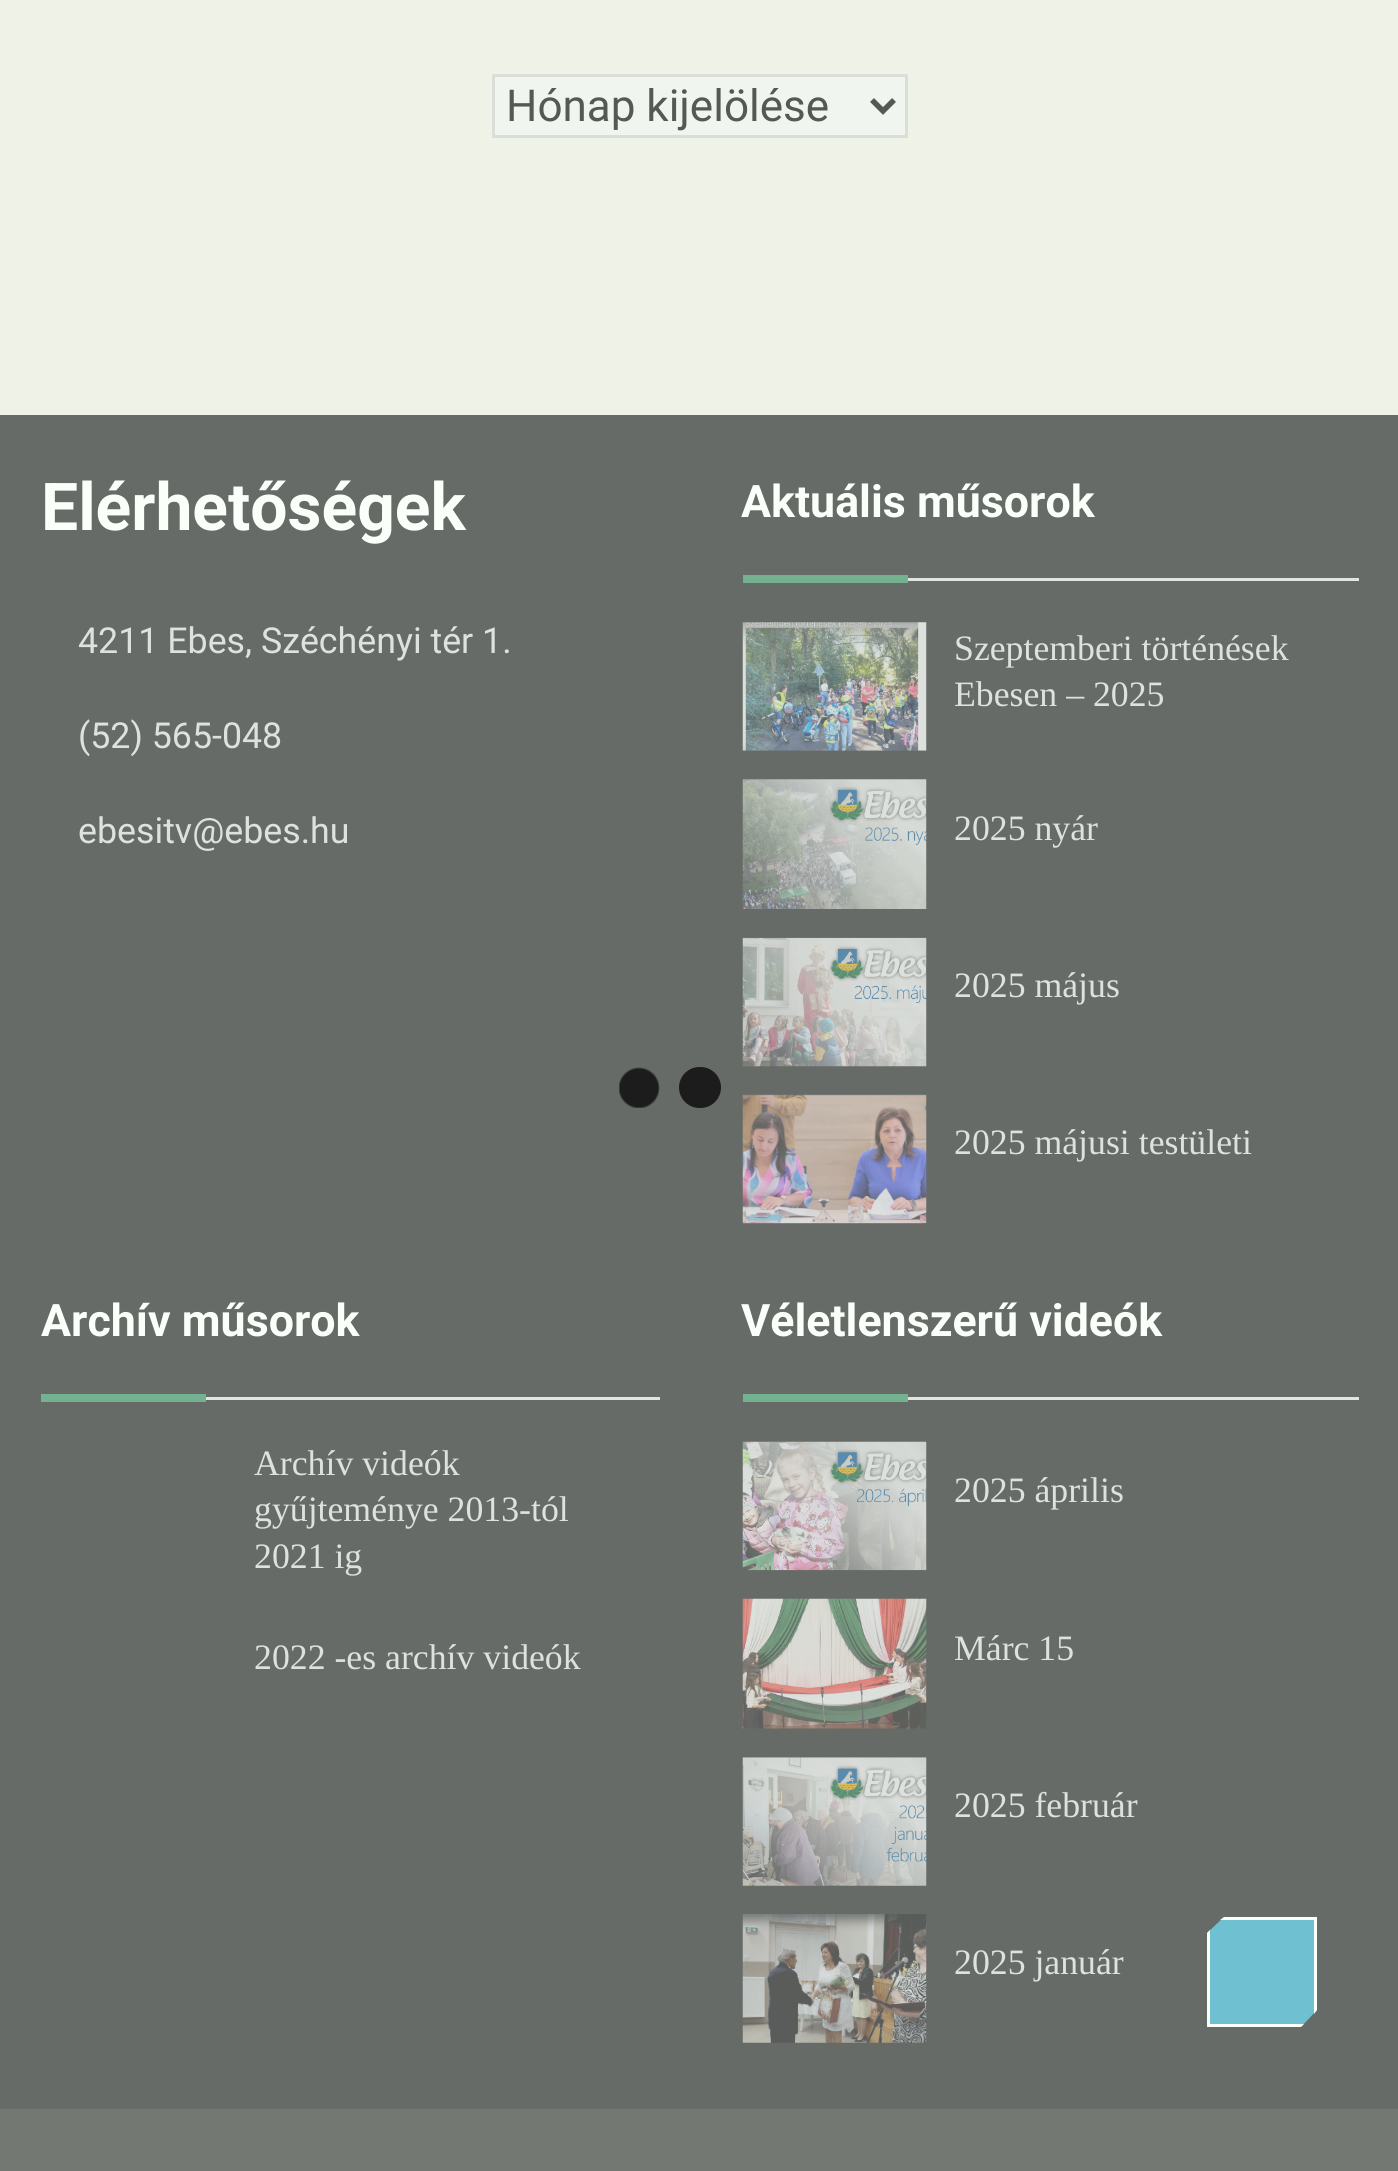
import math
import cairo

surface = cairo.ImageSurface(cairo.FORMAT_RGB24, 1398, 2171)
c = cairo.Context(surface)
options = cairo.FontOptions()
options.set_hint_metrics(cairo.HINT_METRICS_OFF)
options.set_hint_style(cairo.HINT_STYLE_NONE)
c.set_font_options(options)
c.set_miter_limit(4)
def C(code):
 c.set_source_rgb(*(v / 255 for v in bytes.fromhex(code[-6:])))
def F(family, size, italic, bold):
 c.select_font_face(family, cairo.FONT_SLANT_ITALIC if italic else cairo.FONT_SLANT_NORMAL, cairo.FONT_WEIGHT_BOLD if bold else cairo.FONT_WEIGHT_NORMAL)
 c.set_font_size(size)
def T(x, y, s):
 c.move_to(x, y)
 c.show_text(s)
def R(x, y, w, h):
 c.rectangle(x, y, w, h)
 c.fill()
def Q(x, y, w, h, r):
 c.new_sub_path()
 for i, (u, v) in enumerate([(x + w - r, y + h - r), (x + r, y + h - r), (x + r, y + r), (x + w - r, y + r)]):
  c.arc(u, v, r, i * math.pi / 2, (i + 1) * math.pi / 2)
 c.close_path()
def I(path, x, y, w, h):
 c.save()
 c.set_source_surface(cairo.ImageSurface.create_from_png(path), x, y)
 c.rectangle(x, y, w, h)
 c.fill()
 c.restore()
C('eff3e7')
c.paint()
C('f0f5f0')
c.rectangle(493.5,75.5,413,61)
c.fill_preserve()
C('d9ded9')
c.set_line_width(3)
c.stroke()
c.new_path()
c.move_to(872,100)
c.line_to(883,111)
c.line_to(894,100)
C('555955')
c.set_line_width(5.5)
c.stroke()
F('Roboto',44,0,0)
T(506,121,'Hónap kijelölése')
C('676b67')
R(0,415,1398,1694)
F('Roboto',66,0,1)
C('fafffa')
T(41,530,'Elérhetőségek')
F('Roboto',35.75,0,0)
C('dde2dd')
T(78,653,'4211 Ebes, Széchényi tér 1.')
T(78,748,'(52) 565-048')
T(78,843,'ebesitv@ebes.hu')
C('e2e6e2')
R(908,578,451,3)
F('Roboto',44.75,0,1)
C('fafffa')
T(741,517,'Aktuális műsorok')
C('73b190')
R(743,575,165,8)
I('1.png',742,622,185,129)
F('Liberation Serif',35.75,0,0)
C('dde2dd')
T(954,660,'Szeptemberi történések')
T(954,706,'Ebesen – 2025')
I('2.png',742,779,185,130)
T(954,840,'2025 nyár')
I('3.png',742,937,185,130)
T(954,997,'2025 május')
I('4.png',742,1094,185,130)
T(954,1154,'2025 májusi testületi')
C('e2e6e2')
R(206,1397,454,3)
F('Roboto',44.75,0,1)
C('fafffa')
T(41,1336,'Archív műsorok')
C('73b190')
R(41,1394,165,8)
F('Liberation Serif',35.75,0,0)
C('dde2dd')
T(254,1475,'Archív videók')
T(254,1521,'gyűjteménye 2013-tól')
T(254,1568,'2021 ig')
T(254,1669,'2022 -es archív videók')
C('e2e6e2')
R(908,1397,451,3)
F('Roboto',44.75,0,1)
C('fafffa')
T(741,1336,'Véletlenszerű videók')
C('73b190')
R(743,1394,165,8)
I('5.png',742,1441,185,130)
F('Liberation Serif',35.75,0,0)
C('dde2dd')
T(954,1502,'2025 április')
I('6.png',742,1598,185,131)
T(954,1660,'Márc 15')
I('7.png',742,1757,185,129)
T(954,1817,'2025 február')
I('8.png',742,1914,185,129)
T(954,1974,'2025 január')
C('737873')
R(0,2109,1398,62)
gradient = cairo.RadialGradient(639,1088,0,639,1088,21)
gradient.add_color_stop_rgba(.9,0.11,0.11,0.114,1)
gradient.add_color_stop_rgba(1,0.404,0.42,0.404,1)
c.set_source(gradient)
R(619,1067,41,41)
C('1c1c1d')
Q(679,1067,42,41,20.5)
c.fill()
C('6fc1d2')
c.new_path()
c.move_to(1317,2010)
c.line_to(1301,2027)
c.line_to(1207,2027)
c.line_to(1207,1933)
c.line_to(1224,1917)
c.line_to(1317,1917)
c.close_path()
c.fill()
C('fafffa')
c.set_fill_rule(cairo.FILL_RULE_EVEN_ODD)
c.new_path()
c.move_to(1317,2010)
c.line_to(1317,1917)
c.line_to(1224,1917)
c.line_to(1220,1920)
c.line_to(1314,1920)
c.line_to(1314,2014)
c.close_path()
c.move_to(1304,2024)
c.line_to(1210,2024)
c.line_to(1210,1930)
c.line_to(1207,1933)
c.line_to(1207,2027)
c.line_to(1301,2027)
c.close_path()
c.fill()
surface.write_to_png('o.png')
